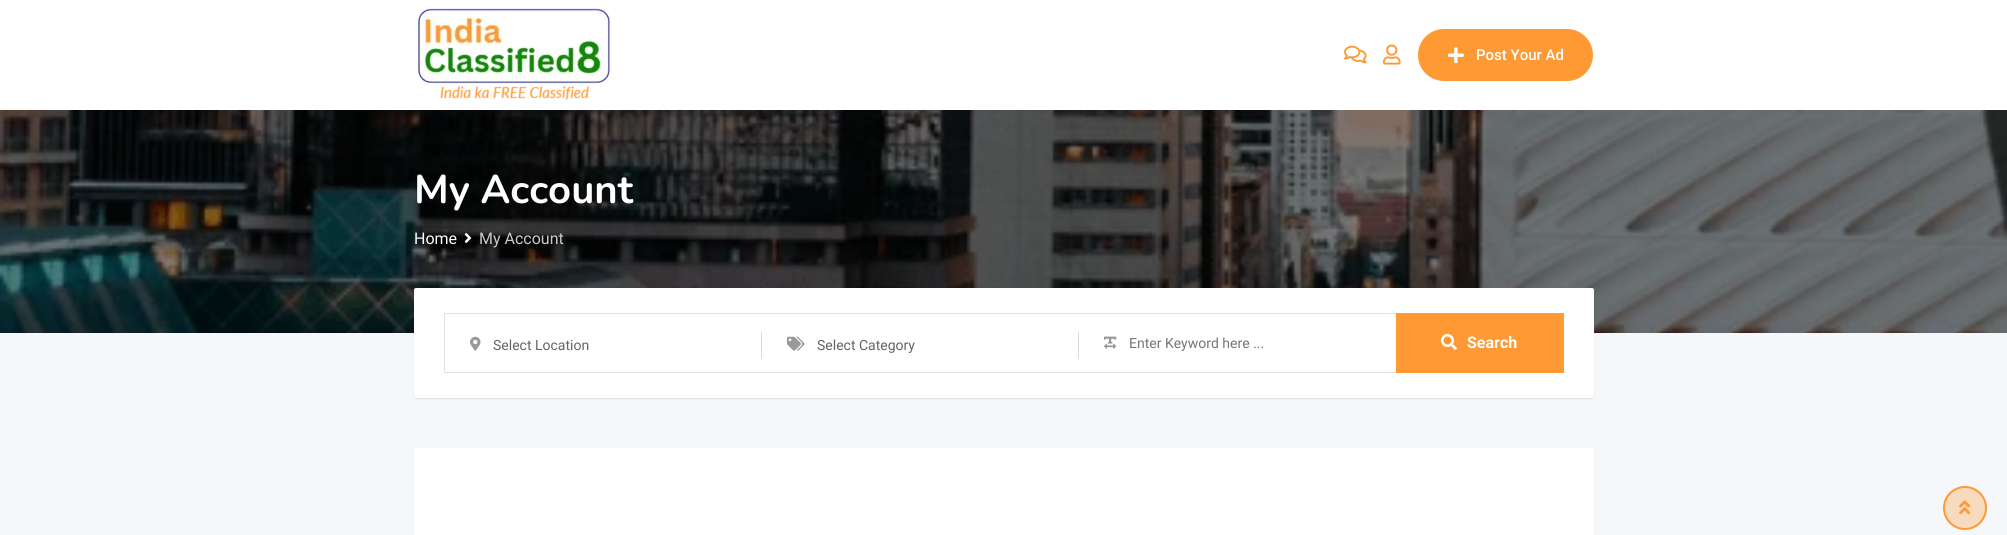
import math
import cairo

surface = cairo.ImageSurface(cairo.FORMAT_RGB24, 2007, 535)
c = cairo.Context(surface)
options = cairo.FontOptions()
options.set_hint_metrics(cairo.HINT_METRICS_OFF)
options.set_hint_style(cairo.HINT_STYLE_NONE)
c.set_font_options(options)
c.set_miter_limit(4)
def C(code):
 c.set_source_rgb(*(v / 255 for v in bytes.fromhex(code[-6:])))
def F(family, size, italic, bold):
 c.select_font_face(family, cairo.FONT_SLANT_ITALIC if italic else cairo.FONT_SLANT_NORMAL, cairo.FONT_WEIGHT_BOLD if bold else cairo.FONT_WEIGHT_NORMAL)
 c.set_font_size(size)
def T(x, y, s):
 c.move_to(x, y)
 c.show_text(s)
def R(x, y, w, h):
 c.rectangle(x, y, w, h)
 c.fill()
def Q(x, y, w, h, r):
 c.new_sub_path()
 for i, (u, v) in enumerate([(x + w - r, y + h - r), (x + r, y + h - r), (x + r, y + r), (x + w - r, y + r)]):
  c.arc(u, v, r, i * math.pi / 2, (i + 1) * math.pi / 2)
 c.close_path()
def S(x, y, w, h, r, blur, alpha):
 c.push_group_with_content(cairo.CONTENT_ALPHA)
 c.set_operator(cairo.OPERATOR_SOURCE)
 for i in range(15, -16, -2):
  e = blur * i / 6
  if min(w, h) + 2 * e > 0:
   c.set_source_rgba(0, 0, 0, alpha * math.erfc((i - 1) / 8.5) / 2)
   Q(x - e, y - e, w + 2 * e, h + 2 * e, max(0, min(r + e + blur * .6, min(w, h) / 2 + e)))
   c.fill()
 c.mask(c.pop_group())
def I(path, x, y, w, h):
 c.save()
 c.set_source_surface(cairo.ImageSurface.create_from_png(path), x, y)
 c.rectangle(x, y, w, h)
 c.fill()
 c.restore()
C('ffffff')
c.paint()
I('1.png',418,8,192,92)
I('2.png',1344,45,23,19)
I('3.png',1383,44,18,21)
C('ff9933')
Q(1418,29,175,52,26)
c.fill()
I('4.png',1448,47,16,17)
F('Roboto Medium',15,0,0)
C('ffffff')
T(1476,60,'Post Your Ad')
C('f5f7fa')
R(0,333,2007,202)
I('5.png',0,110,2007,223)
F('Nunito ExtraLight',40,0,0)
C('ffffff')
T(414,203,'My Account')
F('Roboto',16,0,0)
T(414,244,'Home')
I('6.png',464,233,8,10)
C('cacaca')
T(479,244,'My Account')
C('000000')
S(414,289,1180,110,2,.5,.1)
C('ffffff')
Q(414,288,1180,110,2)
c.fill()
C('e1e1e1')
R(444,313,1,60)
R(445,313,951,1)
R(445,372,951,1)
I('7.png',470,336,11,15)
F('Roboto',14,0,0)
C('646464')
T(493,350,'Select Location')
C('d7dce3')
R(761,332,1,27)
I('8.png',787,336,18,15)
C('646464')
T(817,350,'Select Category')
C('d7dce3')
R(1078,332,1,27)
I('9.png',1104,336,13,13)
C('757575')
T(1129,348,'Enter Keyword here ...')
C('ff9933')
R(1396,313,168,60)
I('10.png',1441,334,16,16)
F('Roboto',16,0,1)
C('ffffff')
T(1467,348,'Search')
R(414,448,1180,87)
C('f8dbbe')
c.new_path()
c.arc(1965,508,21,0,2 * math.pi)
c.fill_preserve()
C('ff9933')
c.stroke()
I('11.png',1959,500,12,15)
surface.write_to_png('o.png')
